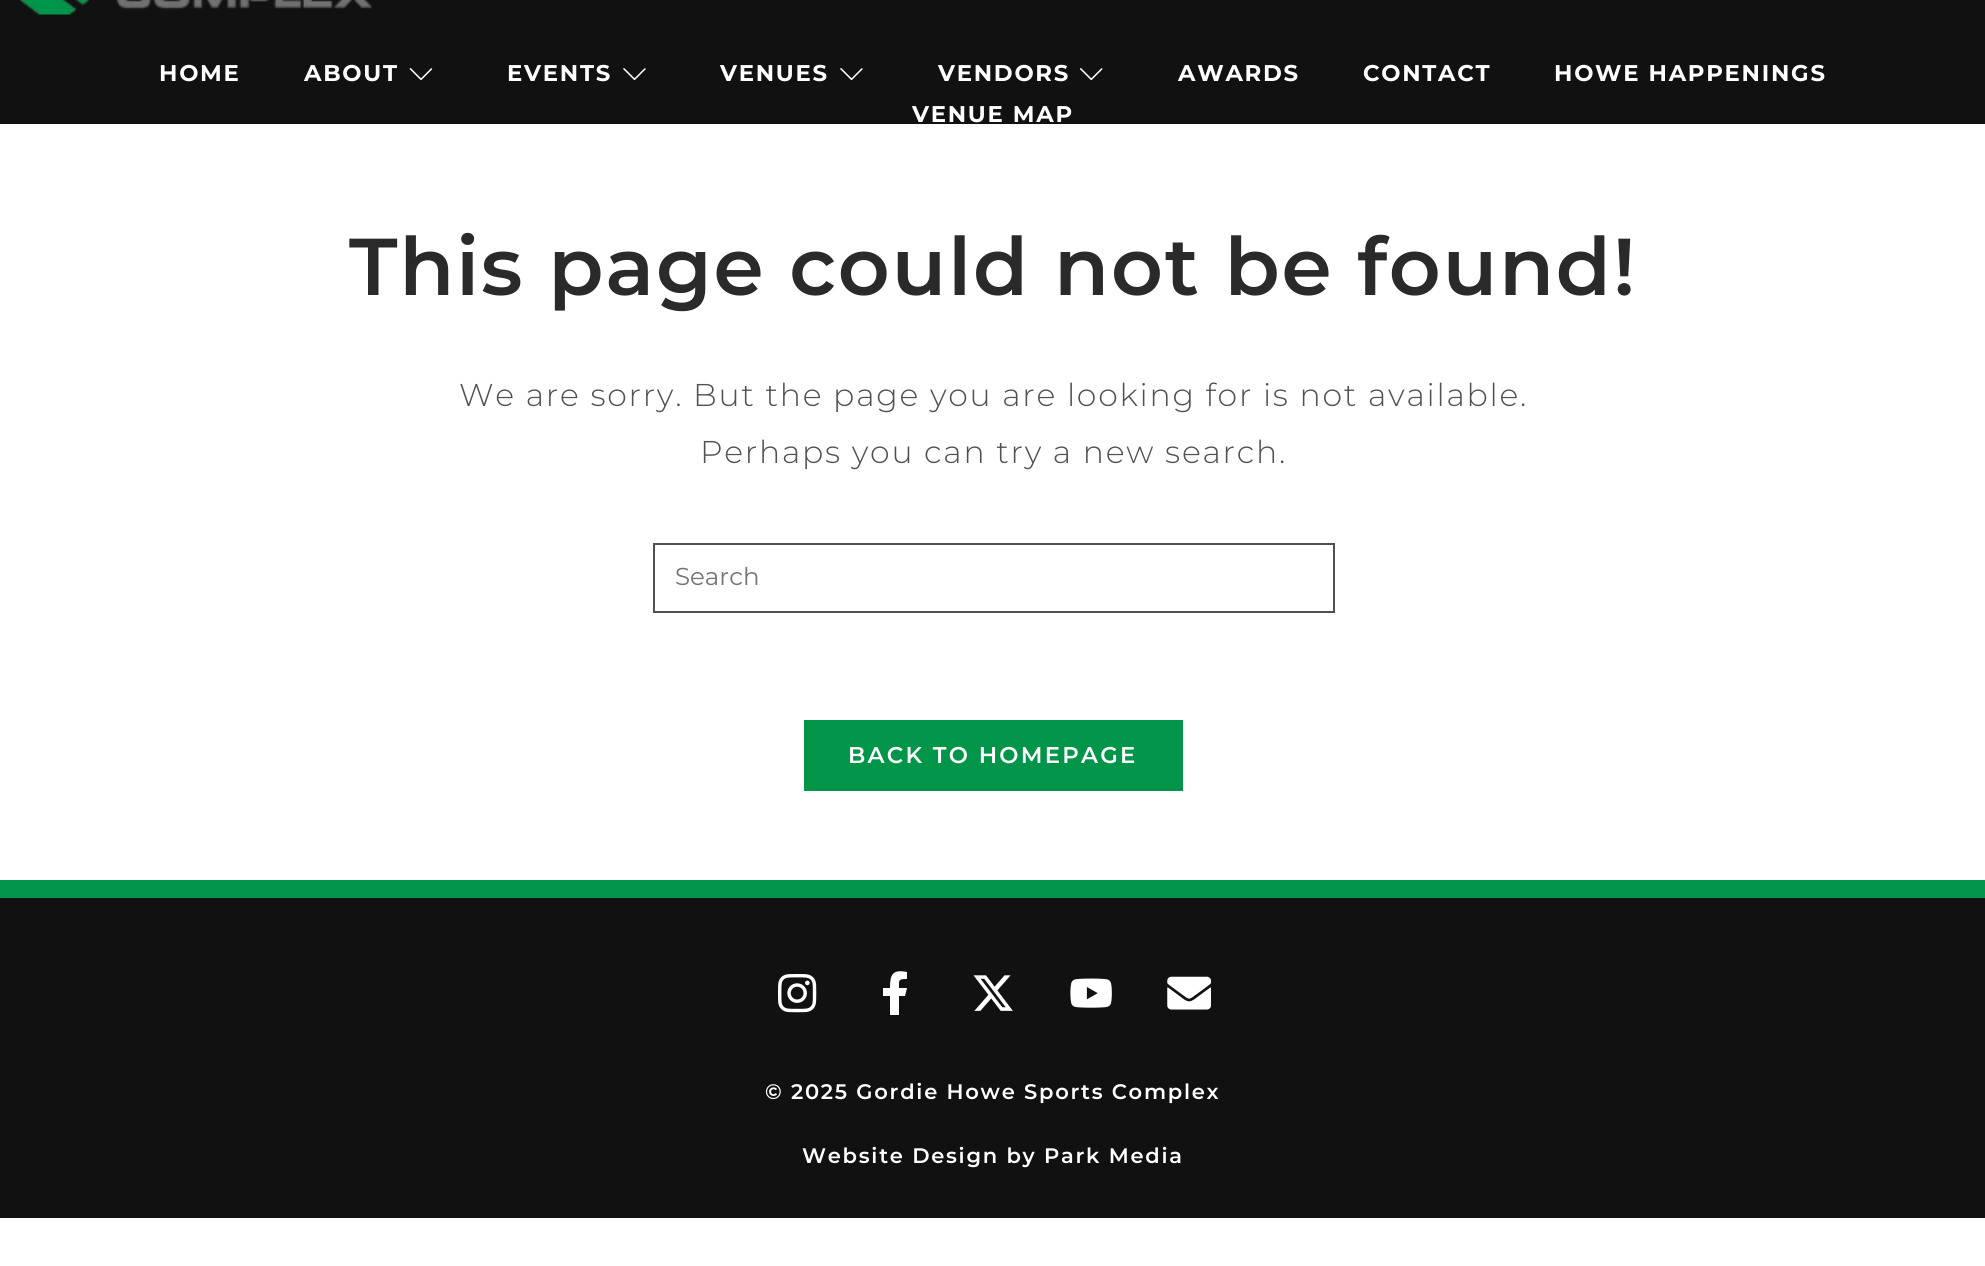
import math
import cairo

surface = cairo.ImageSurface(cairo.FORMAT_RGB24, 1985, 1266)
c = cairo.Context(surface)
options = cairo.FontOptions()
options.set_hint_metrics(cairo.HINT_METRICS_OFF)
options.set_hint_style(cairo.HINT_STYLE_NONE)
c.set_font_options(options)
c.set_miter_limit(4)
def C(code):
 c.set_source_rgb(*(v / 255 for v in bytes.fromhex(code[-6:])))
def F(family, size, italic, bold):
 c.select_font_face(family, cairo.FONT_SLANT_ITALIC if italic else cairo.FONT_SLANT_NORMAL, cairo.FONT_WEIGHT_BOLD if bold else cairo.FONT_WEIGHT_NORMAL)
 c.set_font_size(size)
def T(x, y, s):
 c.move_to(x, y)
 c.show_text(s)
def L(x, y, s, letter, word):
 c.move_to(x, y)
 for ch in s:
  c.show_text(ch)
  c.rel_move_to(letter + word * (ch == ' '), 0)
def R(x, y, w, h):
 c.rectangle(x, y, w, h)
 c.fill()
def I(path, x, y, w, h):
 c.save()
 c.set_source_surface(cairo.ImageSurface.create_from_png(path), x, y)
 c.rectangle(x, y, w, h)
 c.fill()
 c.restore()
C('ffffff')
c.paint()
C('111111')
R(0,0,1985,124)
I('1.png',20,0,352,15)
F('Montserrat',22.75,0,1)
C('ffffff')
L(159,81,'HOME',1.75,0)
L(304,81,'ABOUT',1.75,0)
I('2.png',409,68,24,12)
L(507,81,'EVENTS',1.75,0)
I('3.png',623,68,23,13)
L(720,81,'VENUES',1.75,0)
I('3.png',840,68,23,13)
L(938,81,'VENDORS',1.75,0)
I('4.png',1080,68,23,13)
L(1178,81,'AWARDS',1.75,0)
L(1363,81,'CONTACT',1.75,0)
L(1554,81,'HOWE HAPPENINGS',1.75,0)
L(912,122,'VENUE MAP',1.75,0)
F('Montserrat SemiBold',80.5,0,0)
C('2a2a2a')
L(349,295,'This page could not be found!',1.75,0)
F('Montserrat Light',31.5,0,0)
C('515151')
L(459,406,'We are sorry. But the page you are looking for is not available.',1.75,0)
L(700,463,'Perhaps you can try a new search.',1.75,0)
c.rectangle(654,544,680,68)
c.stroke()
F('Montserrat',24.5,0,0)
C('757575')
T(675,585,'Search')
C('01954a')
R(804,720,379,71)
F('Montserrat SemiBold',22.75,0,0)
C('ffffff')
L(848,763,'BACK TO HOMEPAGE',2.25,0)
C('111111')
R(0,898,1985,320)
C('01954a')
R(0,880,1985,18)
I('5.png',778,974,39,39)
C('ffffff')
c.new_path()
c.move_to(905,996)
c.line_to(907,988)
c.line_to(899,988)
c.curve_to(899,980,898,979,907,979)
c.line_to(907,972)
c.curve_to(892,969,890,975,890,988)
c.line_to(883,988)
c.line_to(883,996)
c.line_to(890,996)
c.line_to(890,1015)
c.line_to(899,1015)
c.line_to(899,996)
c.close_path()
c.fill()
I('6.png',973,975,40,36)
I('7.png',1070,978,42,30)
I('8.png',1167,976,44,34)
F('Montserrat SemiBold',21,0,0)
L(765,1099,'© 2025 Gordie Howe Sports Complex',1.75,0)
L(802,1163,'Website Design by Park Media',1.75,0)
surface.write_to_png('o.png')
